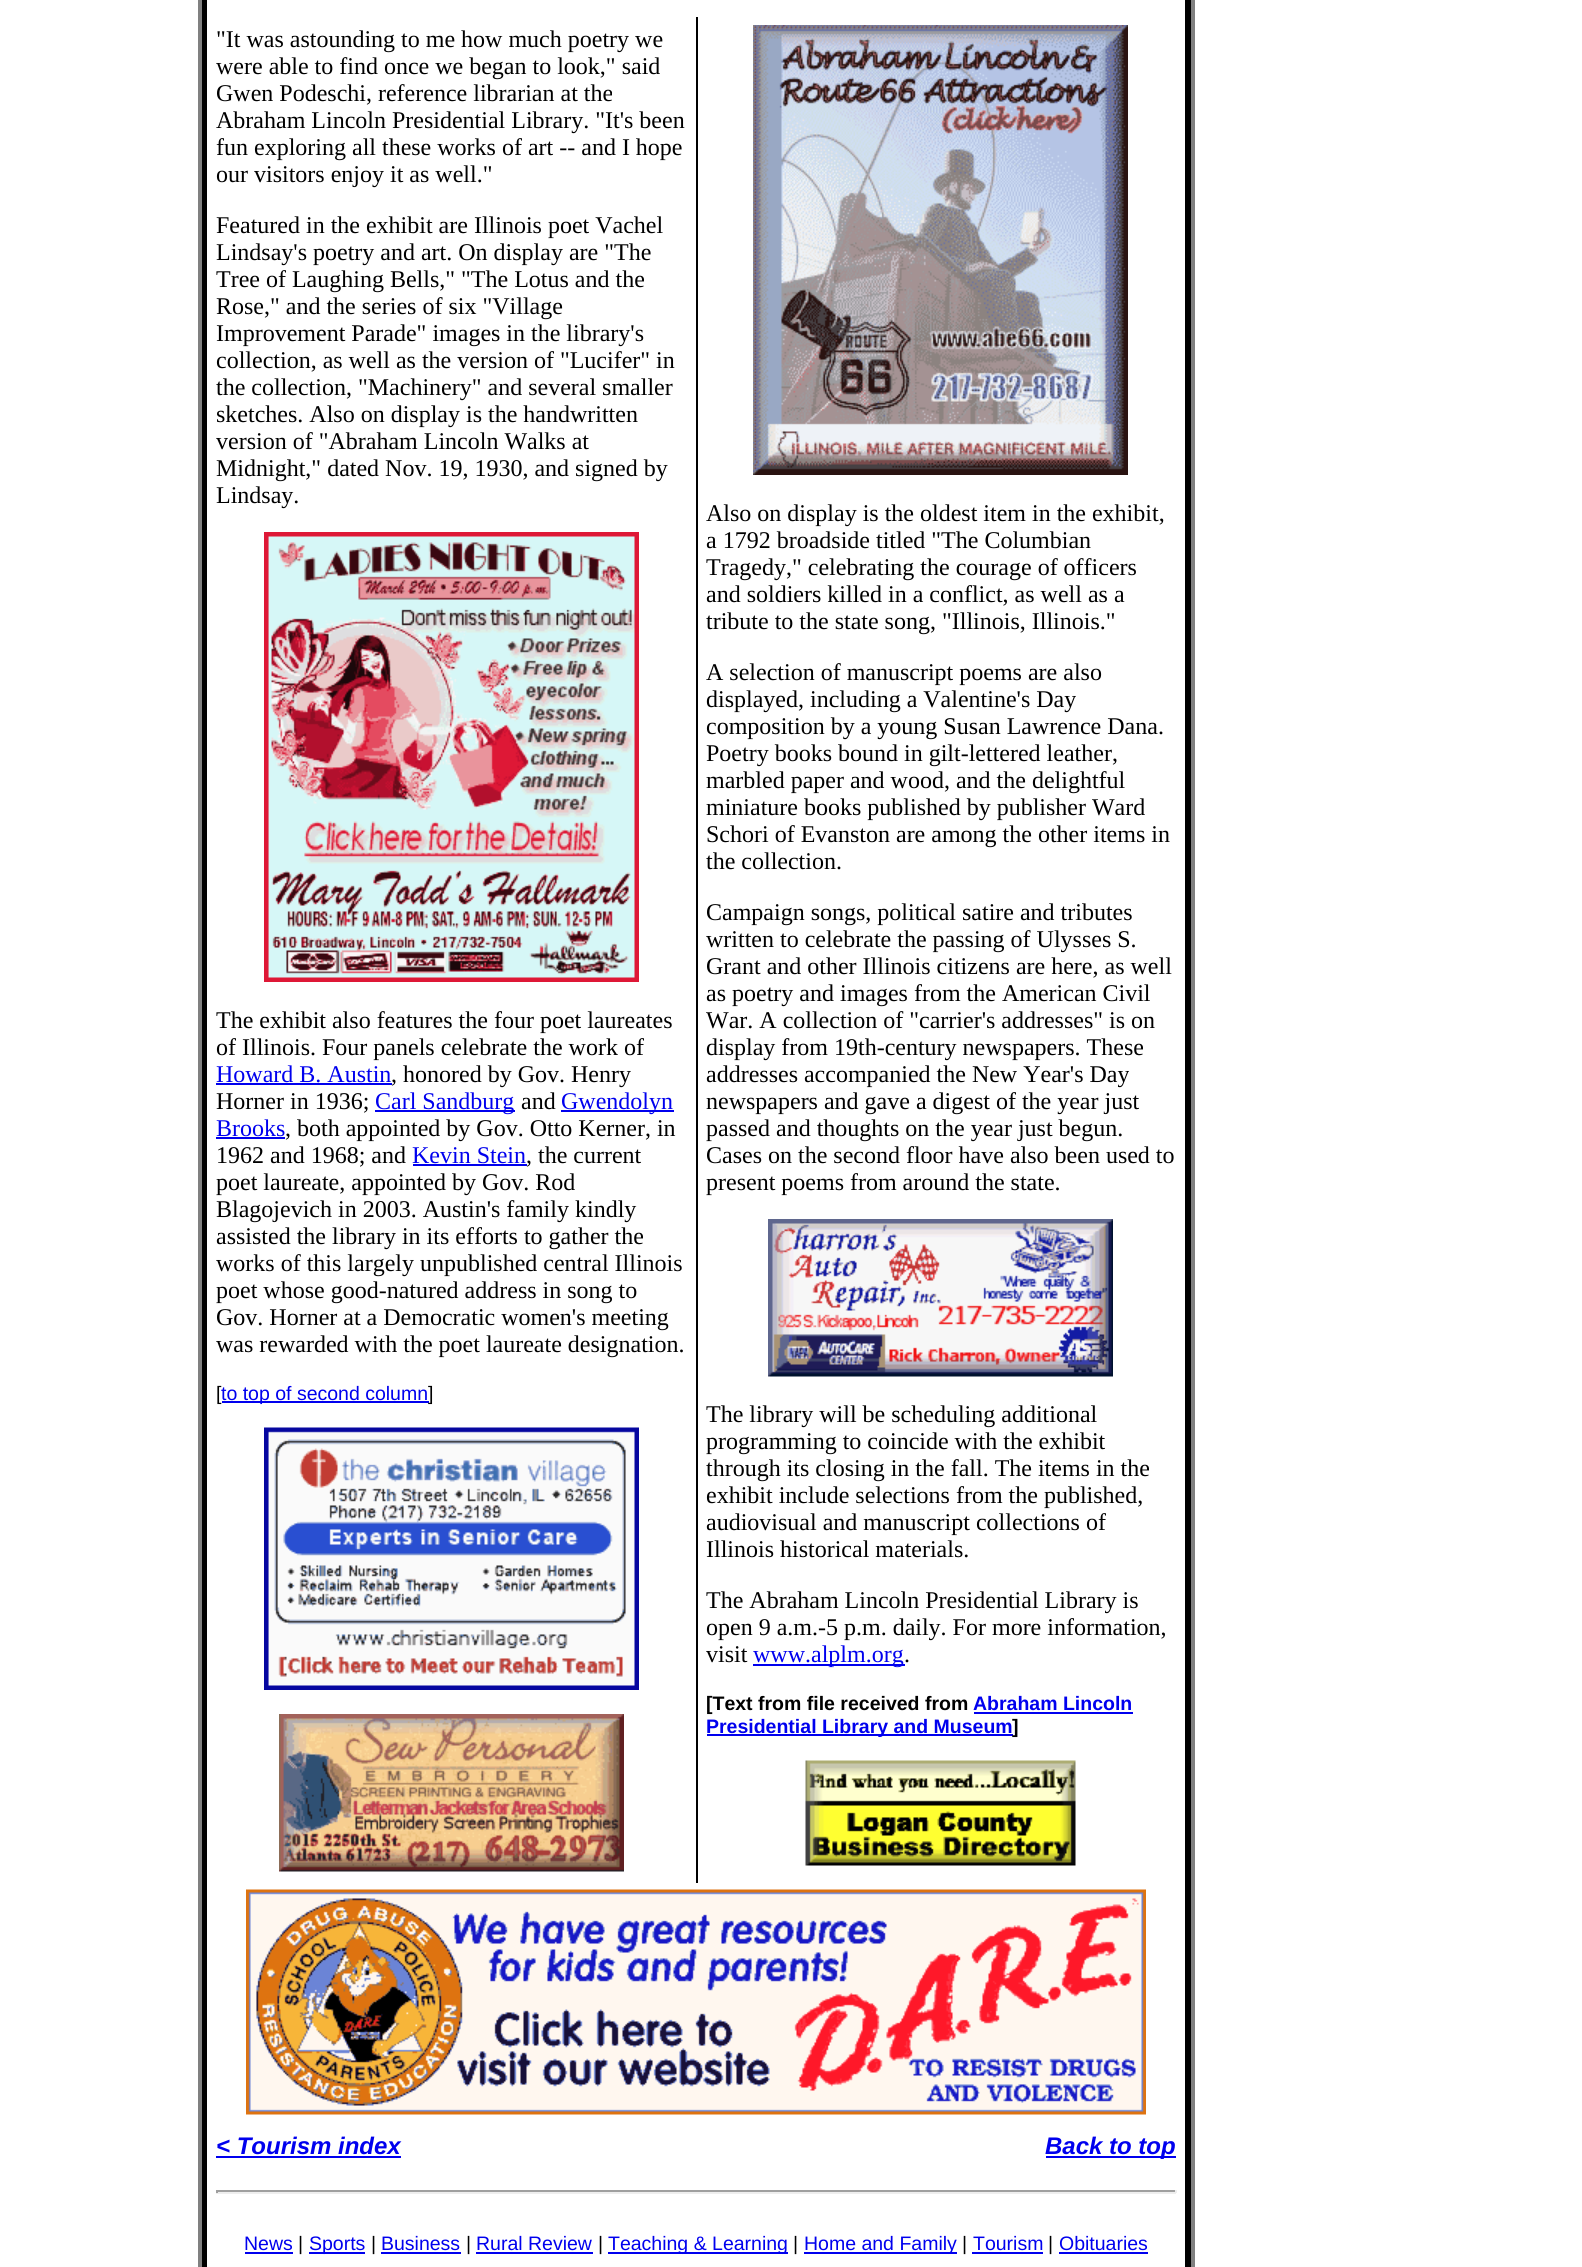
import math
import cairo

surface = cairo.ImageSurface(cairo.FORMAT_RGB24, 1582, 2267)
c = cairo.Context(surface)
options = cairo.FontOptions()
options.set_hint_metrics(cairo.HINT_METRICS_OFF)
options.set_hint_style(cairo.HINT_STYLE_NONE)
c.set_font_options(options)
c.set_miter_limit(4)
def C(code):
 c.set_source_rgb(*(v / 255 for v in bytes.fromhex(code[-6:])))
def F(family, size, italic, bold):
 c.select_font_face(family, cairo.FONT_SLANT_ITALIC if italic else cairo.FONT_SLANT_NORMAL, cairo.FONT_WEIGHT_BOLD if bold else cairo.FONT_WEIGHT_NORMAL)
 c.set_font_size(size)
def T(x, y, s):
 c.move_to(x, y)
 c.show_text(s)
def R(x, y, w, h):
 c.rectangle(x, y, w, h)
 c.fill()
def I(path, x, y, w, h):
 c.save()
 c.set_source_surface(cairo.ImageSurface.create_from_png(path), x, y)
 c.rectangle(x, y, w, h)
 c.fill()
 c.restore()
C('ffffff')
c.paint()
C('808080')
R(1191,0,4,2267)
c.rectangle(203.5,-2.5,985,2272)
C('000000')
c.set_line_width(5)
c.stroke()
C('808080')
R(198,0,4,2267)
c.rectangle(207,-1,979,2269)
C('000000')
c.set_line_width(2)
c.stroke()
C('ffffff')
R(207,0,1,2267)
C('000000')
R(696,17,2,1866)
F('Liberation Serif',24,0,0)
T(216,47,'"It was astounding to me how much poetry we')
T(216,74,'were able to find once we began to look," said')
T(216,101,'Gwen Podeschi, reference librarian at the')
T(216,128,'Abraham Lincoln Presidential Library. "It\'s been')
T(216,155,'fun exploring all these works of art -- and I hope')
T(216,182,'our visitors enjoy it as well."')
T(216,233,'Featured in the exhibit are Illinois poet Vachel')
T(216,260,'Lindsay\'s poetry and art. On display are "The')
T(216,287,'Tree of Laughing Bells," "The Lotus and the')
T(216,314,'Rose," and the series of six "Village')
T(216,341,'Improvement Parade" images in the library\'s')
T(216,368,'collection, as well as the version of "Lucifer" in')
T(216,395,'the collection, "Machinery" and several smaller')
T(216,422,'sketches. Also on display is the handwritten')
T(216,449,'version of "Abraham Lincoln Walks at')
T(216,476,'Midnight," dated Nov. 19, 1930, and signed by')
T(216,503,'Lindsay.')
I('1.png',264,532,375,450)
T(216,1028,'The exhibit also features the four poet laureates')
T(216,1055,'of Illinois. Four panels celebrate the work of')
C('0000ee')
T(216,1082,'Howard B. Austin')
R(216,1083,176,2)
C('000000')
T(391,1082,', honored by Gov. Henry')
T(216,1109,'Horner in 1936;')
C('0000ee')
R(375,1110,140,2)
T(375,1109,'Carl Sandburg')
C('000000')
T(521,1109,'and')
C('0000ee')
R(561,1110,113,2)
T(561,1109,'Gwendolyn')
T(216,1136,'Brooks')
R(216,1137,69,2)
C('000000')
T(285,1136,', both appointed by Gov. Otto Kerner, in')
T(216,1163,'1962 and 1968; and')
C('0000ee')
T(412,1163,'Kevin Stein')
R(413,1164,114,2)
C('000000')
T(526,1163,', the current')
T(216,1190,'poet laureate, appointed by Gov. Rod')
T(216,1217,'Blagojevich in 2003. Austin\'s family kindly')
T(216,1244,'assisted the library in its efforts to gather the')
T(216,1271,'works of this largely unpublished central Illinois')
T(216,1298,'poet whose good-natured address in song to')
T(216,1325,'Gov. Horner at a Democratic women\'s meeting')
T(216,1352,'was rewarded with the poet laureate designation.')
F('Liberation Sans',19.5,0,0)
T(216,1400,'[')
C('0000ee')
R(222,1401,207,2)
T(221,1400,'to top of second column')
C('000000')
T(428,1400,']')
I('2.png',264,1427,375,263)
I('3.png',279,1714,345,158)
I('4.png',753,25,375,450)
F('Liberation Serif',24,0,0)
T(706,521,'Also on display is the oldest item in the exhibit,')
T(706,548,'a 1792 broadside titled "The Columbian')
T(706,575,'Tragedy," celebrating the courage of officers')
T(706,602,'and soldiers killed in a conflict, as well as a')
T(706,629,'tribute to the state song, "Illinois, Illinois."')
T(706,680,'A selection of manuscript poems are also')
T(706,707,'displayed, including a Valentine\'s Day')
T(706,734,'composition by a young Susan Lawrence Dana.')
T(706,761,'Poetry books bound in gilt-lettered leather,')
T(706,788,'marbled paper and wood, and the delightful')
T(706,815,'miniature books published by publisher Ward')
T(706,842,'Schori of Evanston are among the other items in')
T(706,869,'the collection.')
T(706,920,'Campaign songs, political satire and tributes')
T(706,947,'written to celebrate the passing of Ulysses S.')
T(706,974,'Grant and other Illinois citizens are here, as well')
T(706,1001,'as poetry and images from the American Civil')
T(706,1028,'War. A collection of "carrier\'s addresses" is on')
T(706,1055,'display from 19th-century newspapers. These')
T(706,1082,'addresses accompanied the New Year\'s Day')
T(706,1109,'newspapers and gave a digest of the year just')
T(706,1136,'passed and thoughts on the year just begun.')
T(706,1163,'Cases on the second floor have also been used to')
T(706,1190,'present poems from around the state.')
I('5.png',768,1219,345,158)
T(706,1422,'The library will be scheduling additional')
T(706,1449,'programming to coincide with the exhibit')
T(706,1476,'through its closing in the fall. The items in the')
T(706,1503,'exhibit include selections from the published,')
T(706,1530,'audiovisual and manuscript collections of')
T(706,1557,'Illinois historical materials.')
T(706,1608,'The Abraham Lincoln Presidential Library is')
T(706,1635,'open 9 a.m.-5 p.m. daily. For more information,')
T(706,1662,'visit')
C('0000ee')
R(753,1664,152,2)
T(753,1662,'www.alplm.org')
C('000000')
T(904,1662,'.')
F('Liberation Sans',19.5,0,1)
T(706,1710,'[Text from file received from')
C('0000ee')
T(973,1710,'Abraham Lincoln')
R(974,1712,159,2)
R(707,1734,306,2)
T(706,1733,'Presidential Library and Museum')
C('000000')
T(1012,1733,']')
I('6.png',805,1760,271,106)
I('7.png',246,1889,900,226)
F('Liberation Sans',24,1,1)
C('0000ee')
T(216,2154,'< Tourism index')
R(216,2156,185,2)
R(1046,2156,130,2)
T(1045,2154,'Back to top')
C('9f9f9f')
R(216,2190,960,2)
C('eeeeee')
R(1175,2190,2,3)
R(216,2192,960,2)
C('9f9f9f')
R(216,2190,2,3)
F('Liberation Sans',19.5,0,0)
C('0000ee')
T(244,2250,'News')
R(245,2252,48,2)
C('000000')
T(298,2250,'|')
C('0000ee')
R(309,2252,56,2)
T(309,2250,'Sports')
C('000000')
T(371,2250,'|')
C('0000ee')
T(381,2250,'Business')
R(381,2252,80,2)
C('000000')
T(466,2250,'|')
C('0000ee')
T(476,2250,'Rural Review')
R(476,2252,117,2)
C('000000')
T(598,2250,'|')
C('0000ee')
R(608,2252,180,2)
T(608,2250,'Teaching & Learning')
C('000000')
T(793,2250,'|')
C('0000ee')
R(804,2252,153,2)
T(804,2250,'Home and Family')
C('000000')
T(962,2250,'|')
C('0000ee')
T(973,2250,'Tourism')
R(972,2252,71,2)
C('000000')
T(1048,2250,'|')
C('0000ee')
T(1059,2250,'Obituaries')
R(1059,2252,89,2)
surface.write_to_png('o.png')
